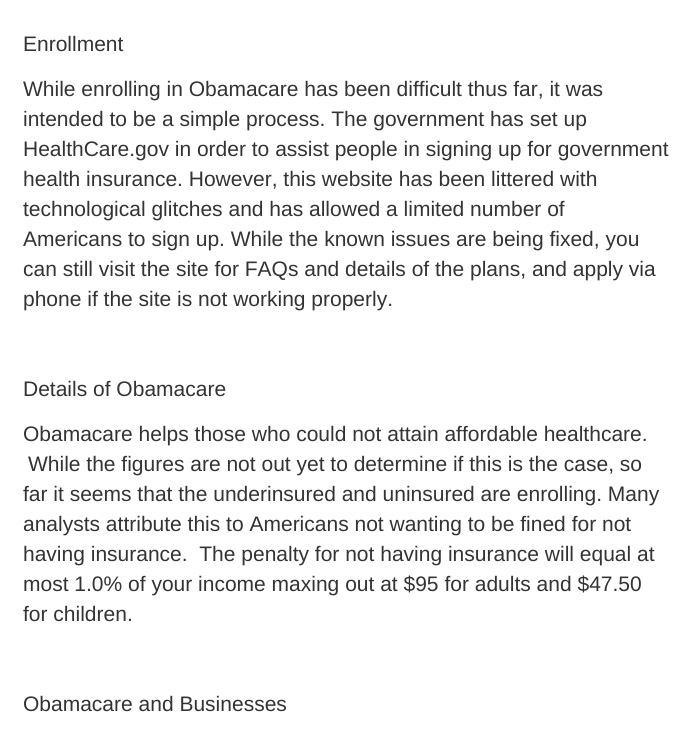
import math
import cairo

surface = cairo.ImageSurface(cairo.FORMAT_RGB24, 691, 731)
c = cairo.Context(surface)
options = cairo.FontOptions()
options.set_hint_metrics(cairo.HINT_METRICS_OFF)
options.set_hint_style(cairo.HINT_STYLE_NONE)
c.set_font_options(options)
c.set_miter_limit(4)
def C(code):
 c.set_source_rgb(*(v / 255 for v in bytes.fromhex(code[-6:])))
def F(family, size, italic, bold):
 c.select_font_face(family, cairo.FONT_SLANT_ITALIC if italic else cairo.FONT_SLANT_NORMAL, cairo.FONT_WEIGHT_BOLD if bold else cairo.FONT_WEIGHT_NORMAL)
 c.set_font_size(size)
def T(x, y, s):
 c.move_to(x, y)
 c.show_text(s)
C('ffffff')
c.paint()
F('Liberation Sans',21,0,0)
C('333333')
T(23,51,'Enrollment')
T(23,96,'While enrolling in Obamacare has been difficult thus far, it was')
T(23,126,'intended to be a simple process. The government has set up')
T(23,156,'HealthCare.gov in order to assist people in signing up for government')
T(23,186,'health insurance. However, this website has been littered with')
T(23,216,'technological glitches and has allowed a limited number of')
T(23,246,'Americans to sign up. While the known issues are being fixed, you')
T(23,276,'can still visit the site for FAQs and details of the plans, and apply via')
T(23,306,'phone if the site is not working properly.')
T(23,396,'Details of Obamacare')
T(23,441,'Obamacare helps those who could not attain affordable healthcare.')
T(28,471,'While the figures are not out yet to determine if this is the case, so')
T(23,501,'far it seems that the underinsured and uninsured are enrolling. Many')
T(23,531,'analysts attribute this to Americans not wanting to be fined for not')
T(23,561,'having insurance.  The penalty for not having insurance will equal at')
T(23,591,'most 1.0% of your income maxing out at $95 for adults and $47.50')
T(23,621,'for children.')
T(23,711,'Obamacare and Businesses')
surface.write_to_png('o.png')
